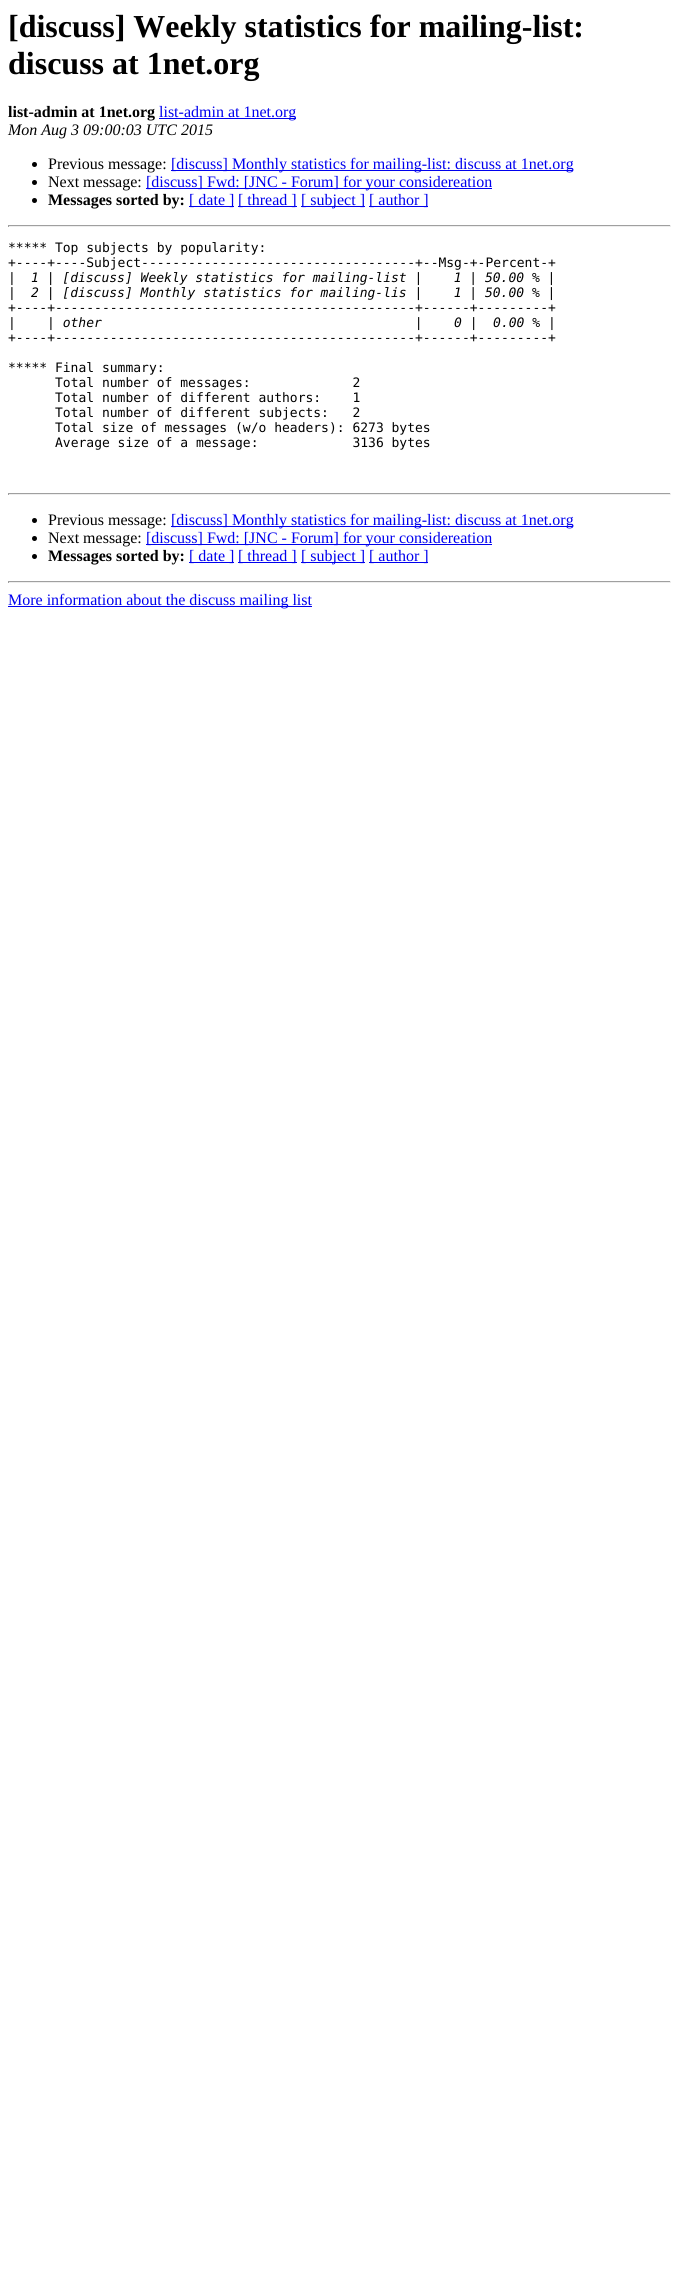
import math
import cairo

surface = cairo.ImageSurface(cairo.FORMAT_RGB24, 679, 2273)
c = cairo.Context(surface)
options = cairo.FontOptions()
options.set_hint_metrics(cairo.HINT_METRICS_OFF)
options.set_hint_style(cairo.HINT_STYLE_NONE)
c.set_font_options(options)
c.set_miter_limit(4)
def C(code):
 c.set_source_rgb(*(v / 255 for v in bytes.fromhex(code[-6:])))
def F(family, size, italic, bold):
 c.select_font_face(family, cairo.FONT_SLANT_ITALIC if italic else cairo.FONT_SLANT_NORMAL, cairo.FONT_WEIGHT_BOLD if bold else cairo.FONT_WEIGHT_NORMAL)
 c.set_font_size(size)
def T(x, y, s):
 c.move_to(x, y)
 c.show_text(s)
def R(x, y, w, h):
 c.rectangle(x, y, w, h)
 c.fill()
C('ffffff')
c.paint()
F('Liberation Serif',32,0,1)
C('000000')
T(8,37,'[discuss] Weekly statistics for mailing-list:')
T(8,74,'discuss at 1net.org')
F('Liberation Serif',16,0,1)
T(8,117,'list-admin at 1net.org')
C('0000ee')
R(159,118,137,1)
F('Liberation Serif',16,0,0)
T(159,117,'list-admin at 1net.org')
F('Liberation Serif',16,1,0)
C('000000')
T(8,135,'Mon Aug 3 09:00:03 UTC 2015')
c.new_path()
c.arc(34.5,164.5,2.5,0,2 * math.pi)
c.fill()
F('Liberation Serif',16,0,0)
T(48,169,'Previous message:')
C('0000ee')
R(171,170,402,1)
T(171,169,'[discuss] Monthly statistics for mailing-list: discuss at 1net.org')
C('000000')
c.new_path()
c.arc(34.5,182.5,2.5,0,2 * math.pi)
c.fill()
T(48,187,'Next message:')
C('0000ee')
R(146,188,346,1)
T(146,187,'[discuss] Fwd: [JNC - Forum] for your considereation')
C('000000')
c.new_path()
c.arc(34.5,200.5,2.5,0,2 * math.pi)
c.fill()
F('Liberation Serif',16,0,1)
T(48,205,'Messages sorted by:')
C('0000ee')
R(189,206,45,1)
F('Liberation Serif',16,0,0)
T(189,205,'[ date ]')
R(238,206,59,1)
T(238,205,'[ thread ]')
R(301,206,64,1)
T(301,205,'[ subject ]')
R(369,206,59,1)
T(369,205,'[ author ]')
C('9f9f9f')
R(8,225,663,1)
C('eeeeee')
R(670,225,1,2)
R(8,226,663,1)
C('9f9f9f')
R(8,225,1,2)
F('DejaVu Sans Mono',13,0,0)
C('000000')
T(8,252,'***** Top subjects by popularity:')
T(8,267,'+----+----Subject-----------------------------------+--Msg-+-Percent-+')
T(8,282,'|')
F('DejaVu Sans Mono',13,1,0)
T(31,282,'1 | [discuss] Weekly statistics for mailing-list |    1 | 50.00 % |')
F('DejaVu Sans Mono',13,0,0)
T(8,297,'|')
F('DejaVu Sans Mono',13,1,0)
T(31,297,'2 | [discuss] Monthly statistics for mailing-lis |    1 | 50.00 % |')
F('DejaVu Sans Mono',13,0,0)
T(8,312,'+----+----------------------------------------------+------+---------+')
T(8,327,'|')
F('DejaVu Sans Mono',13,1,0)
T(47,327,'| other                                        |    0 |  0.00 % |')
F('DejaVu Sans Mono',13,0,0)
T(8,342,'+----+----------------------------------------------+------+---------+')
T(8,372,'***** Final summary:')
T(55,387,'Total number of messages:             2')
T(55,402,'Total number of different authors:    1')
T(55,417,'Total number of different subjects:   2')
T(55,432,'Total size of messages (w/o headers): 6273 bytes')
T(55,447,'Average size of a message:            3136 bytes')
C('9f9f9f')
R(8,493,663,1)
C('eeeeee')
R(670,493,1,2)
R(8,494,663,1)
C('9f9f9f')
R(8,493,1,2)
C('000000')
c.new_path()
c.arc(34.5,520.5,2.5,0,2 * math.pi)
c.fill()
F('Liberation Serif',16,0,0)
T(48,525,'Previous message:')
C('0000ee')
R(171,526,402,1)
T(171,525,'[discuss] Monthly statistics for mailing-list: discuss at 1net.org')
C('000000')
c.new_path()
c.arc(34.5,538.5,2.5,0,2 * math.pi)
c.fill()
T(48,543,'Next message:')
C('0000ee')
R(146,544,346,1)
T(146,543,'[discuss] Fwd: [JNC - Forum] for your considereation')
C('000000')
c.new_path()
c.arc(34.5,556.5,2.5,0,2 * math.pi)
c.fill()
F('Liberation Serif',16,0,1)
T(48,561,'Messages sorted by:')
C('0000ee')
R(189,562,45,1)
F('Liberation Serif',16,0,0)
T(189,561,'[ date ]')
R(238,562,59,1)
T(238,561,'[ thread ]')
R(301,562,64,1)
T(301,561,'[ subject ]')
R(369,562,59,1)
T(369,561,'[ author ]')
C('9f9f9f')
R(8,581,663,1)
C('eeeeee')
R(670,581,1,2)
R(8,582,663,1)
C('9f9f9f')
R(8,581,1,2)
C('0000ee')
R(8,606,304,1)
T(8,605,'More information about the discuss mailing list')
surface.write_to_png('o.png')
